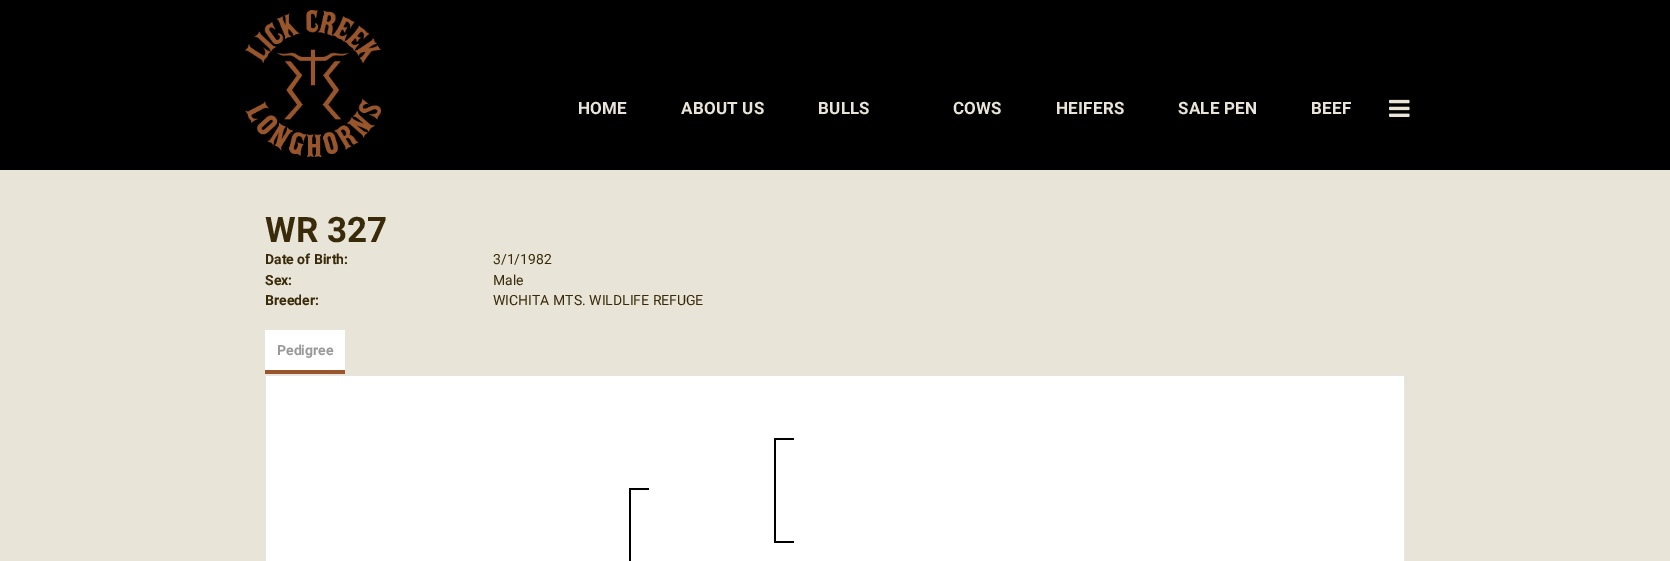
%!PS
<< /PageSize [1670 561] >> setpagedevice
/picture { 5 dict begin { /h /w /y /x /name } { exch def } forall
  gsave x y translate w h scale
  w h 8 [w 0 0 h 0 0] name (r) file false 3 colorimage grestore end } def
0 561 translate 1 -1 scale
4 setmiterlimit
0.91 0.894 0.843 setrgbcolor
0 0 1670 561 rectfill
0 setgray
0 0 1670 170 rectfill
(img1.rgb) 245 10 136 147 picture
/Roboto-Bold [17 0 0 -17 0 0] selectfont
0.91 0.894 0.843 setrgbcolor
578 114 moveto 0.25 0 (HOME) ashow
681 114 moveto 0.25 0 (ABOUT US) ashow
818 114 moveto 0.25 0 (BULLS) ashow
953 114 moveto 0.25 0 (COWS) ashow
1056 114 moveto 0.25 0 (HEIFERS) ashow
1178 114 moveto 0.25 0 (SALE PEN) ashow
1311 114 moveto 0.25 0 (BEEF) ashow
(img2.rgb) 1389 99 21 18 picture
/Roboto-Bold [35 0 0 -35 0 0] selectfont
0.224 0.169 0.035 setrgbcolor
265 242 moveto (WR 327) show
/Roboto-Bold [14 0 0 -14 0 0] selectfont
265 264 moveto (Date of Birth:) show
/Roboto-Regular [14 0 0 -14 0 0] selectfont
493 264 moveto (3/1/1982) show
/Roboto-Bold [14 0 0 -14 0 0] selectfont
265 285 moveto (Sex:) show
/Roboto-Regular [14 0 0 -14 0 0] selectfont
493 285 moveto (Male) show
/Roboto-Bold [14 0 0 -14 0 0] selectfont
265 305 moveto (Breeder:) show
/Roboto-Regular [14 0 0 -14 0 0] selectfont
493 305 moveto (WICHITA MTS. WILDLIFE REFUGE) show
0.898 setgray
265 375 1140 1 rectfill
0.6 0.337 0.173 setrgbcolor
265 370 80 4 rectfill
1 setgray
265 330 80 40 rectfill
/Roboto-Bold [14 0 0 -14 0 0] selectfont
0.608 0.6 0.6 setrgbcolor
277 355 moveto (Pedigree) show
1 setgray
266 376 1138 185 rectfill
0.898 setgray
newpath 1405 376 moveto 1404 376 lineto 1404 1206 lineto 1404 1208 lineto 1405 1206 lineto closepath fill
newpath 265 376 moveto 266 376 lineto 266 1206 lineto 266 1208 lineto 265 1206 lineto closepath fill
0 setgray
629 488 20 2 rectfill
629 488 2 73 rectfill
774 438 20 2 rectfill
774 541 20 2 rectfill
774 438 2 105 rectfill
showpage
